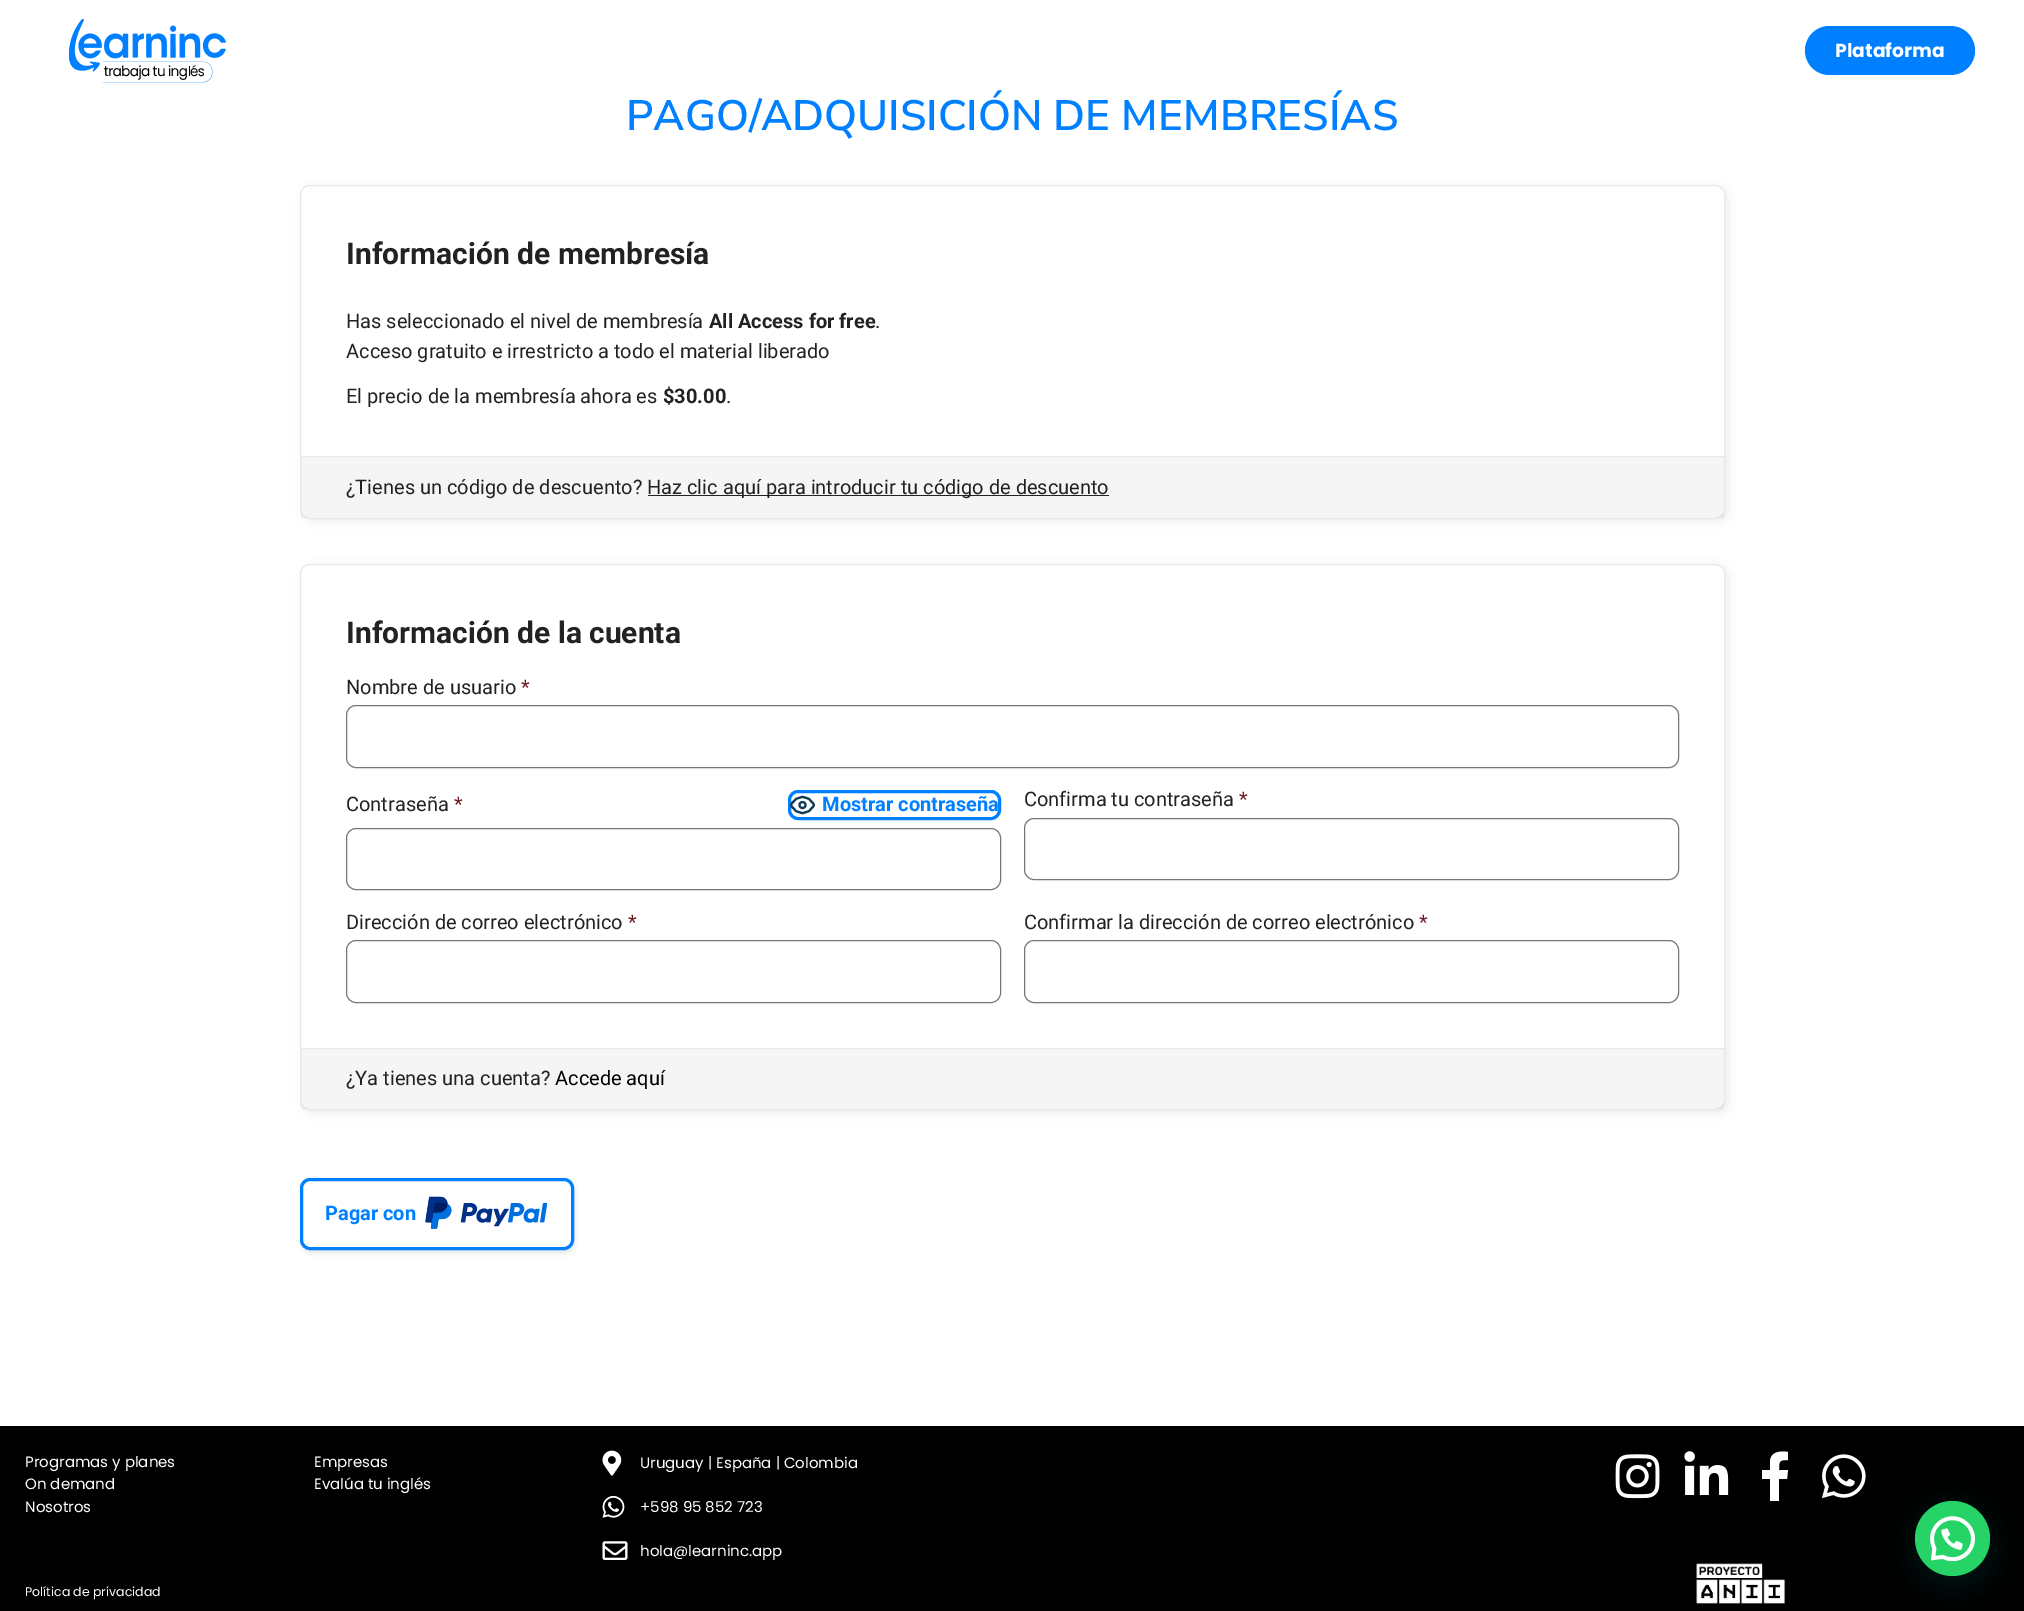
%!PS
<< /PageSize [2024 1611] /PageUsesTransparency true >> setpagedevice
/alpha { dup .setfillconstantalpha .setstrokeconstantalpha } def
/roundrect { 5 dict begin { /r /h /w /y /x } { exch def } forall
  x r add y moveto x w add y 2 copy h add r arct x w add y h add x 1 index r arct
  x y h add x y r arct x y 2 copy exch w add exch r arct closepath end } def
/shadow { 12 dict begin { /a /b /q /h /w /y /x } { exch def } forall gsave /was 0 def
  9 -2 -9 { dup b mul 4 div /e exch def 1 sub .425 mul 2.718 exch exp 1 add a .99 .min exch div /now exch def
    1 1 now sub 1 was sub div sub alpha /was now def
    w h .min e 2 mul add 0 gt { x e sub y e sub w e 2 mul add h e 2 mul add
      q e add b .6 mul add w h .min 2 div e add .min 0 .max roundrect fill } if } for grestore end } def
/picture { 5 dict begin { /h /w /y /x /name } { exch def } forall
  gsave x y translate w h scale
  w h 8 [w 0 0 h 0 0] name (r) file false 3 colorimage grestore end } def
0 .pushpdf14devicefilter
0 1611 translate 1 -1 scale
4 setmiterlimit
1 setgray
0 0 2024 1611 rectfill
(img1.rgb) 69 19 157 64 picture
0 0.502 1 setrgbcolor
1805 26 170 49 24.5 roundrect fill
/Poppins-Bold [18.75 0 0 -18.75 0 0] selectfont
1 setgray
1835 57 moveto (Plataforma) show
/NunitoSans-SemiBold [42.5 0 0 -42.5 0 0] selectfont
0 0.502 1 setrgbcolor
626 130 moveto (PAGO/ADQUISICIÓN DE MEMBRESÍAS) show
0 setgray
303 188 1425 333 10 4.5 0.07 shadow
1 setgray
300.5 185.5 1424 333 9.5 roundrect gsave fill grestore
0.91 setgray
stroke
/Roboto-Bold [30 0 0 -30 0 0] selectfont
0.133 setgray
346 264 moveto (Información de membresía) show
/Roboto-Regular [20 0 0 -20 0 0] selectfont
346 328 moveto (Has seleccionado el nivel de membresía) show
/Roboto-Bold [20 0 0 -20 0 0] selectfont
709 328 moveto (All Access for free) show
/Roboto-Regular [20 0 0 -20 0 0] selectfont
875 328 moveto (.) show
346 358 moveto (Acceso gratuito e irrestricto a todo el material liberado) show
346 403 moveto (El precio de la membresía ahora es) show
/Roboto-Bold [20 0 0 -20 0 0] selectfont
663 403 moveto ($30.00) show
/Roboto-Regular [20 0 0 -20 0 0] selectfont
726 403 moveto (.) show
0.04 alpha
0 setgray
301 457 1423 61 rectfill
1 alpha
0.91 setgray
301 456 1423 1 rectfill
0.133 setgray
346 494 moveto (¿Tienes un código de descuento?) show
648 495 461 1 rectfill
647 494 moveto (Haz clic aquí para introducir tu código de descuento) show
0 setgray
303 566 1425 547 10 4.5 0.07 shadow
1 setgray
300.5 564.5 1424 545 9.5 roundrect gsave fill grestore
0.91 setgray
stroke
/Roboto-Bold [30 0 0 -30 0 0] selectfont
0.133 setgray
346 643 moveto (Información de la cuenta) show
/Roboto-Regular [20 0 0 -20 0 0] selectfont
346 694 moveto (Nombre de usuario) show
0.447 0.11 0.141 setrgbcolor
521 694 moveto (*) show
0.467 setgray
346.5 705.5 1332 62 9.5 roundrect stroke
0.133 setgray
346 811 moveto (Contraseña) show
0.447 0.11 0.141 setrgbcolor
454 811 moveto (*) show
0 0.502 1 setrgbcolor
3 setlinewidth
789.5 791.5 210 27 8.5 roundrect stroke
0.047 0.239 0.329 setrgbcolor
2.1 setlinewidth
1 setlinecap
1 setlinejoin
newpath 791 805 moveto 796.5 794 808.5 794 814 805 curveto 808.5 816 796.5 816 791 805 curveto closepath stroke
0 setlinecap
0 setlinejoin
newpath 802.5 805 3 0 360 arc closepath stroke
/Roboto-Bold [20 0 0 -20 0 0] selectfont
0 0.502 1 setrgbcolor
822 811 moveto (Mostrar contraseña) show
0.467 setgray
1 setlinewidth
346.5 828.5 654 61 9.5 roundrect stroke
/Roboto-Regular [20 0 0 -20 0 0] selectfont
0.133 setgray
1024 806 moveto (Confirma tu contraseña) show
0.447 0.11 0.141 setrgbcolor
1239 806 moveto (*) show
0.467 setgray
1024.5 818.5 654 61 9.5 roundrect stroke
0.133 setgray
346 929 moveto (Dirección de correo electrónico) show
0.447 0.11 0.141 setrgbcolor
628 929 moveto (*) show
0.467 setgray
346.5 940.5 654 62 9.5 roundrect stroke
0.133 setgray
1024 929 moveto (Confirmar la dirección de correo electrónico) show
0.447 0.11 0.141 setrgbcolor
1419 929 moveto (*) show
0.467 setgray
1024.5 940.5 654 62 9.5 roundrect stroke
0.04 alpha
0 setgray
301 1049 1423 60 rectfill
1 alpha
0.91 setgray
301 1048 1423 1 rectfill
0.133 setgray
346 1085 moveto (¿Ya tienes una cuenta?) show
0 setgray
555 1085 moveto (Accede aquí) show
301 1180 274 73 10 2.5 0.1 shadow
1 setgray
301.5 1179.5 271 69 8.5 roundrect gsave fill grestore
0 0.502 1 setrgbcolor
3 setlinewidth
stroke
/Roboto-Bold [20 0 0 -20 0 0] selectfont
325 1220 moveto (Pagar con) show
(img2.rgb) 425 1196 123 33 picture
0 setgray
0 1426 2024 185 rectfill
/Poppins-Regular [15 0 0 -15 0 0] selectfont
1 setgray
25 1467 moveto (Programas y planes) show
25 1489 moveto (On demand) show
25 1512 moveto (Nosotros) show
/Poppins-Regular [12.5 0 0 -12.5 0 0] selectfont
25 1596 moveto (Política de privacidad) show
/Poppins-Regular [15 0 0 -15 0 0] selectfont
314 1467 moveto (Empresas) show
314 1489 moveto (Evalúa tu inglés) show
(img3.rgb) 602 1450 20 26 picture
640 1468 moveto (Uruguay | España | Colombia) show
(img4.rgb) 602 1495 23 23 picture
640 1512 moveto (+598 95 852 723) show
(img5.rgb) 602 1541 26 19 picture
640 1556 moveto (hola@learninc.app) show
(img6.rgb) 1615 1454 45 45 picture
(img7.rgb) 1684 1451 45 44 picture
newpath 1787 1479 moveto 1779 1479 lineto 1779 1501 lineto 1770 1501 lineto 1770 1479 lineto 1762 1479 lineto 1762 1470 lineto 1770 1470 lineto 1770 1461 lineto 1771 1451 1781 1451 1788 1452 curveto 1788 1460 lineto 1779 1460 1779 1461 1779 1470 curveto 1788 1470 lineto closepath fill
(img8.rgb) 1822 1454 44 44 picture
(img9.rgb) 1696 1563 90 41 picture
0.027 0.369 0.329 setrgbcolor
1916 1509 75 75 37.5 15 0.24 shadow
0.145 0.827 0.4 setrgbcolor
newpath 1952.5 1538.5 37.5 0 360 arc closepath fill
(img10.rgb) 1930 1516 45 45 picture
.poppdf14devicefilter showpage
